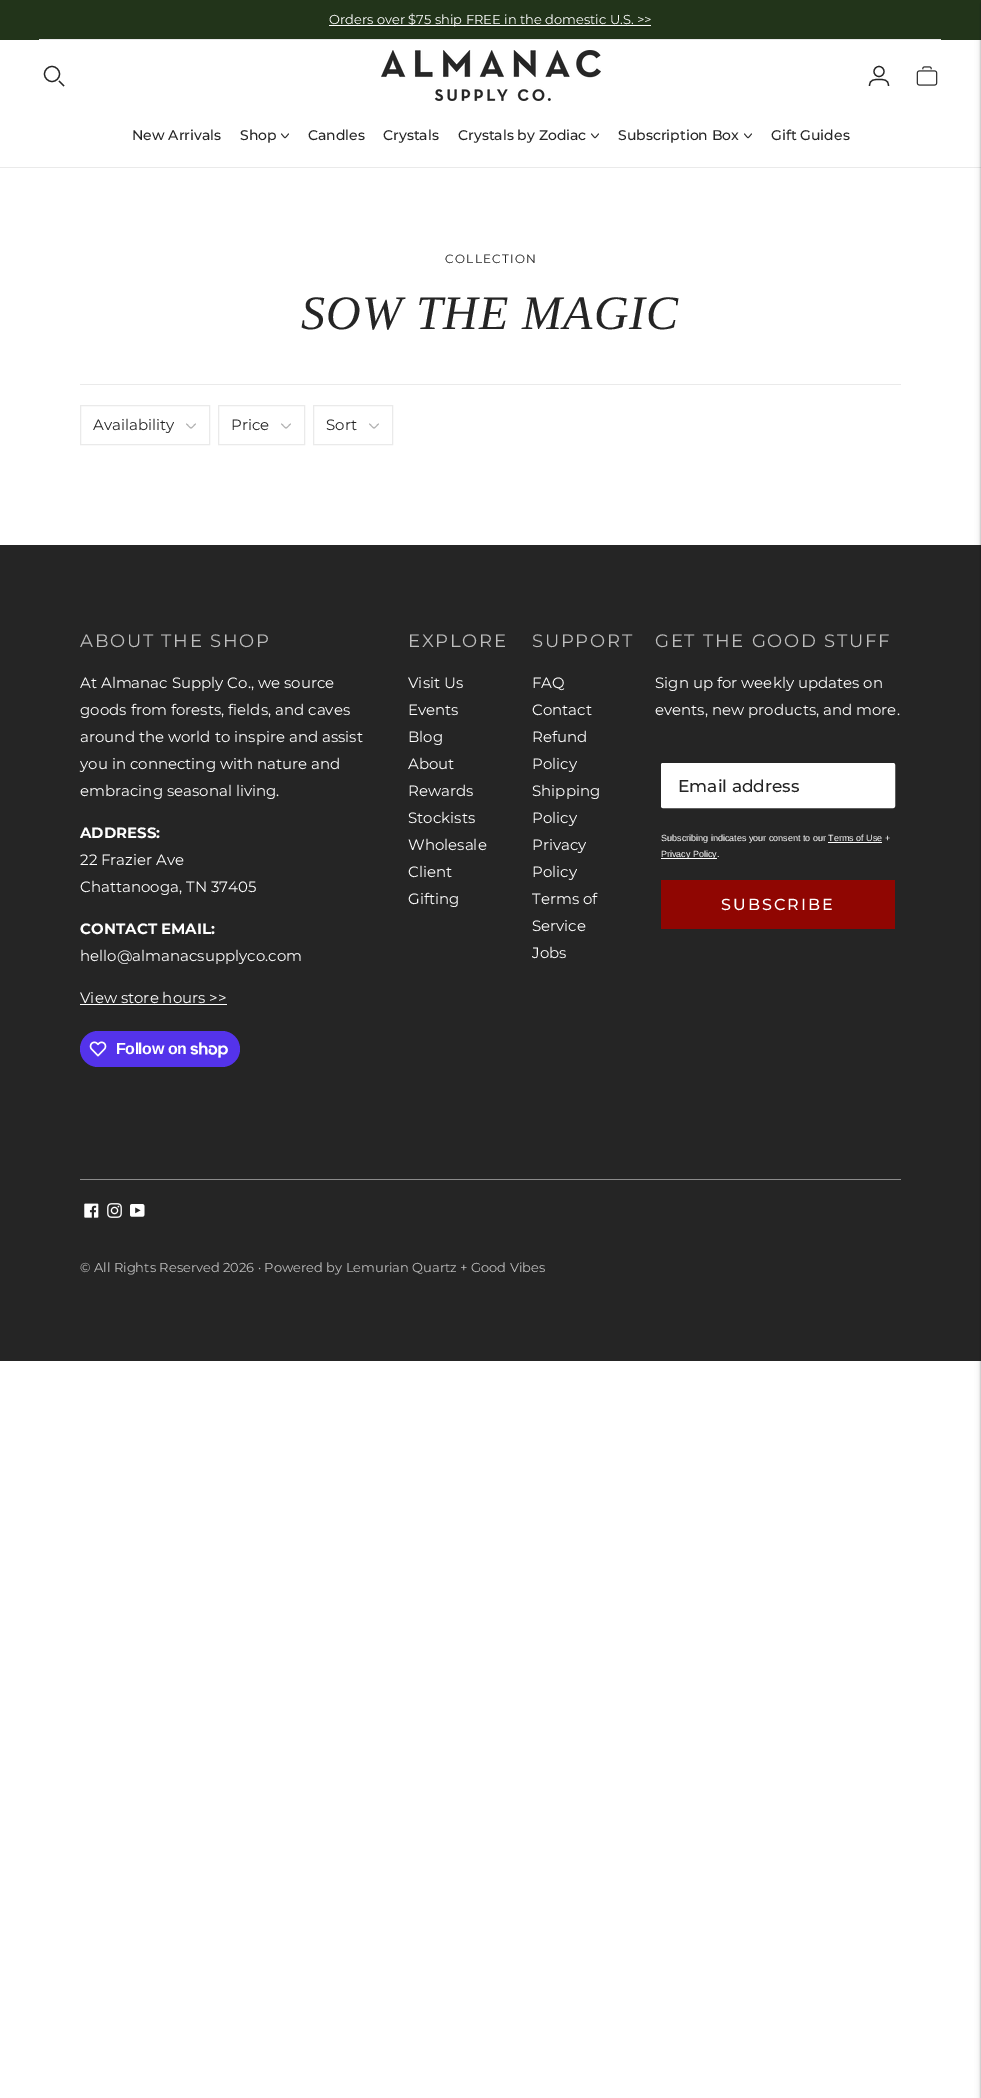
%!PS
<< /PageSize [981 2098] /PageUsesTransparency true >> setpagedevice
/alpha { dup .setfillconstantalpha .setstrokeconstantalpha } def
/roundrect { 5 dict begin { /r /h /w /y /x } { exch def } forall
  x r add y moveto x w add y 2 copy h add r arct x w add y h add x 1 index r arct
  x y h add x y r arct x y 2 copy exch w add exch r arct closepath end } def
/shadow { 12 dict begin { /a /b /q /h /w /y /x } { exch def } forall gsave /was 0 def
  9 -2 -9 { dup b mul 4 div /e exch def 1 sub .425 mul 2.718 exch exp 1 add a .99 .min exch div /now exch def
    1 1 now sub 1 was sub div sub alpha /was now def
    w h .min e 2 mul add 0 gt { x e sub y e sub w e 2 mul add h e 2 mul add
      q e add b .6 mul add w h .min 2 div e add .min 0 .max roundrect fill } if } for grestore end } def
/picture { 5 dict begin { /h /w /y /x /name } { exch def } forall
  gsave x y translate w h scale
  w h 8 [w 0 0 h 0 0] name (r) file false 3 colorimage grestore end } def
0 .pushpdf14devicefilter
0 2098 translate 1 -1 scale
4 setmiterlimit
1 setgray
0 0 981 2098 rectfill
0.133 0.204 0.102 setrgbcolor
0 0 981 40 rectfill
0.918 setgray
0 167 981 1 rectfill
0.145 setgray
0 545 981 816 rectfill
0 setgray
981 4 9 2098 0 3 0.1 shadow
981 2 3 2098 0 1 0.15 shadow
1 setgray
329 25 322 1 rectfill
/Montserrat-Regular [13 0 0 -13 0 0] selectfont
329 24 moveto (Orders over $75 ship FREE in the domestic U.S. >>) show
0.125 0.176 0.102 setrgbcolor
329 27 322 1 rectfill
0.918 setgray
39 39 902 1 rectfill
0.145 setgray
1.2 setlinewidth
newpath 52 74 7.5 0 360 arc closepath stroke
newpath 59 81 moveto 64 86 lineto stroke
(img1.rgb) 381 50 220 51 picture
newpath 879 71.5 5 0 360 arc closepath stroke
newpath 869.5 86 moveto 869.5 79.5 874 79.5 879 79.5 curveto 884 79.5 888.5 79.5 888.5 86 curveto stroke
(img2.rgb) 916 66 22 20 picture
/Montserrat-Medium [14 0 0 -14 0 0] selectfont
132 140 moveto (New Arrivals) show
240 140 moveto (Shop) show
0.8 setlinewidth
1 setlinecap
1 setlinejoin
newpath 281.5 134 moveto 286 139 284 139 288.5 134 curveto stroke
308 140 moveto (Candles) show
383 140 moveto (Crystals) show
458 140 moveto (Crystals by Zodiac) show
newpath 591.5 134 moveto 596 139 594 139 598.5 134 curveto stroke
618 140 moveto (Subscription Box) show
newpath 744.5 134 moveto 749 139 747 139 751.5 134 curveto stroke
771 140 moveto (Gift Guides) show
0 setgray
981 4 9 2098 0 3 0.1 shadow
981 2 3 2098 0 1 0.15 shadow
0.918 setgray
80 384 821 1 rectfill
/Montserrat-Regular [12 0 0 -12 0 0] selectfont
0.145 setgray
445 263 moveto 1.25 0 (COLLECTION) ashow
/LiberationSerif-Italic [48 0 0 -48 0 0] selectfont
301 329 moveto 1 0 (SOW THE MAGIC) ashow
0.918 setgray
1 setlinewidth
0 setlinecap
0 setlinejoin
80.5 405.5 129 39 rectstroke
/Montserrat-Regular [15 0 0 -15 0 0] selectfont
0.145 setgray
93 430 moveto (Availability) show
0.694 setgray
1 setlinecap
1 setlinejoin
newpath 186.5 424 moveto 192.5 429.5 189.5 429.5 195.5 424 curveto stroke
0.918 setgray
0 setlinecap
0 setlinejoin
218.5 405.5 86 39 rectstroke
0.145 setgray
231 430 moveto (Price) show
0.694 setgray
1 setlinecap
1 setlinejoin
newpath 281.5 424 moveto 287.5 429.5 284.5 429.5 290.5 424 curveto stroke
0.918 setgray
0 setlinecap
0 setlinejoin
313.5 405.5 79 39 rectstroke
0.145 setgray
326 430 moveto (Sort) show
0.694 setgray
1 setlinecap
1 setlinejoin
newpath 369.5 424 moveto 375.5 429.5 372.5 429.5 378.5 424 curveto stroke
/Montserrat-Regular [18 0 0 -18 0 0] selectfont
0.745 setgray
80 647 moveto 1.75 0 (ABOUT THE SHOP) ashow
/Montserrat-Regular [15 0 0 -15 0 0] selectfont
1 setgray
80 688 moveto (At Almanac Supply Co., we source) show
80 715 moveto (goods from forests, fields, and caves) show
80 742 moveto (around the world to inspire and assist) show
80 769 moveto (you in connecting with nature and) show
80 796 moveto (embracing seasonal living.) show
/Montserrat-Bold [15 0 0 -15 0 0] selectfont
80 838 moveto (ADDRESS:) show
/Montserrat-Regular [15 0 0 -15 0 0] selectfont
80 865 moveto (22 Frazier Ave) show
80 892 moveto (Chattanooga, TN 37405) show
/Montserrat-Bold [15 0 0 -15 0 0] selectfont
80 934 moveto (CONTACT EMAIL:) show
/Montserrat-Regular [15 0 0 -15 0 0] selectfont
80 961 moveto (hello@almanacsupplyco.com) show
80 1003 moveto (View store hours >>) show
80 1004 147 1 rectfill
0.329 0.2 0.922 setrgbcolor
80 1031 160 36 18 roundrect fill
(img3.rgb) 89 1041 18 16 picture
/LiberationSans-Bold [16 0 0 -16 0 0] selectfont
1 setgray
116 1054 moveto -0.5 0 (Follow on) ashow
(img4.rgb) 190 1042 38 16 picture
/Montserrat-Regular [18 0 0 -18 0 0] selectfont
0.745 setgray
408 647 moveto 1.75 0 (EXPLORE) ashow
/Montserrat-Regular [15 0 0 -15 0 0] selectfont
1 setgray
408 688 moveto (Visit Us) show
408 715 moveto (Events) show
408 742 moveto (Blog) show
408 769 moveto (About) show
408 796 moveto (Rewards) show
408 823 moveto (Stockists) show
408 850 moveto (Wholesale) show
408 877 moveto (Client) show
408 904 moveto (Gifting) show
/Montserrat-Regular [18 0 0 -18 0 0] selectfont
0.745 setgray
532 647 moveto 1.75 0 (SUPPORT) ashow
/Montserrat-Regular [15 0 0 -15 0 0] selectfont
1 setgray
532 688 moveto (FAQ) show
532 715 moveto (Contact) show
532 742 moveto (Refund) show
532 769 moveto (Policy) show
532 796 moveto (Shipping) show
532 823 moveto (Policy) show
532 850 moveto (Privacy) show
532 877 moveto (Policy) show
532 904 moveto (Terms of) show
532 931 moveto (Service) show
532 958 moveto (Jobs) show
/Montserrat-Regular [18 0 0 -18 0 0] selectfont
0.745 setgray
655 647 moveto 1.75 0 (GET THE GOOD STUFF) ashow
/Montserrat-Regular [15 0 0 -15 0 0] selectfont
1 setgray
655 688 moveto (Sign up for weekly updates on) show
655 715 moveto (events, new products, and more.) show
661.5 763.5 233 44 1.5 roundrect gsave fill grestore
0 setlinecap
0 setlinejoin
stroke
/Montserrat-Medium [17 0 0 -17 0 0] selectfont
0.145 setgray
678 792 moveto (Email address) show
/LiberationSans-Regular [9 0 0 -9 0 0] selectfont
1 setgray
661 841 moveto (Subscribing indicates your consent to our Terms of Use +) show
828 842 54 1 rectfill
661 858 56 1 rectfill
661 857 moveto (Privacy Policy.) show
0.565 0.024 0.008 setrgbcolor
661 880 234 49 rectfill
/Montserrat-Medium [16 0 0 -16 0 0] selectfont
1 setgray
721 910 moveto 2 0 (SUBSCRIBE) ashow
0.545 setgray
80 1179 821 1 rectfill
(img5.rgb) 84 1203 15 15 picture
(img6.rgb) 107 1203 15 15 picture
(img7.rgb) 130 1204 15 13 picture
/Montserrat-Regular [13 0 0 -13 0 0] selectfont
0.745 setgray
80 1272 moveto (© All Rights Reserved 2026 · Powered by Lemurian Quartz + Good Vibes) show
.poppdf14devicefilter showpage
